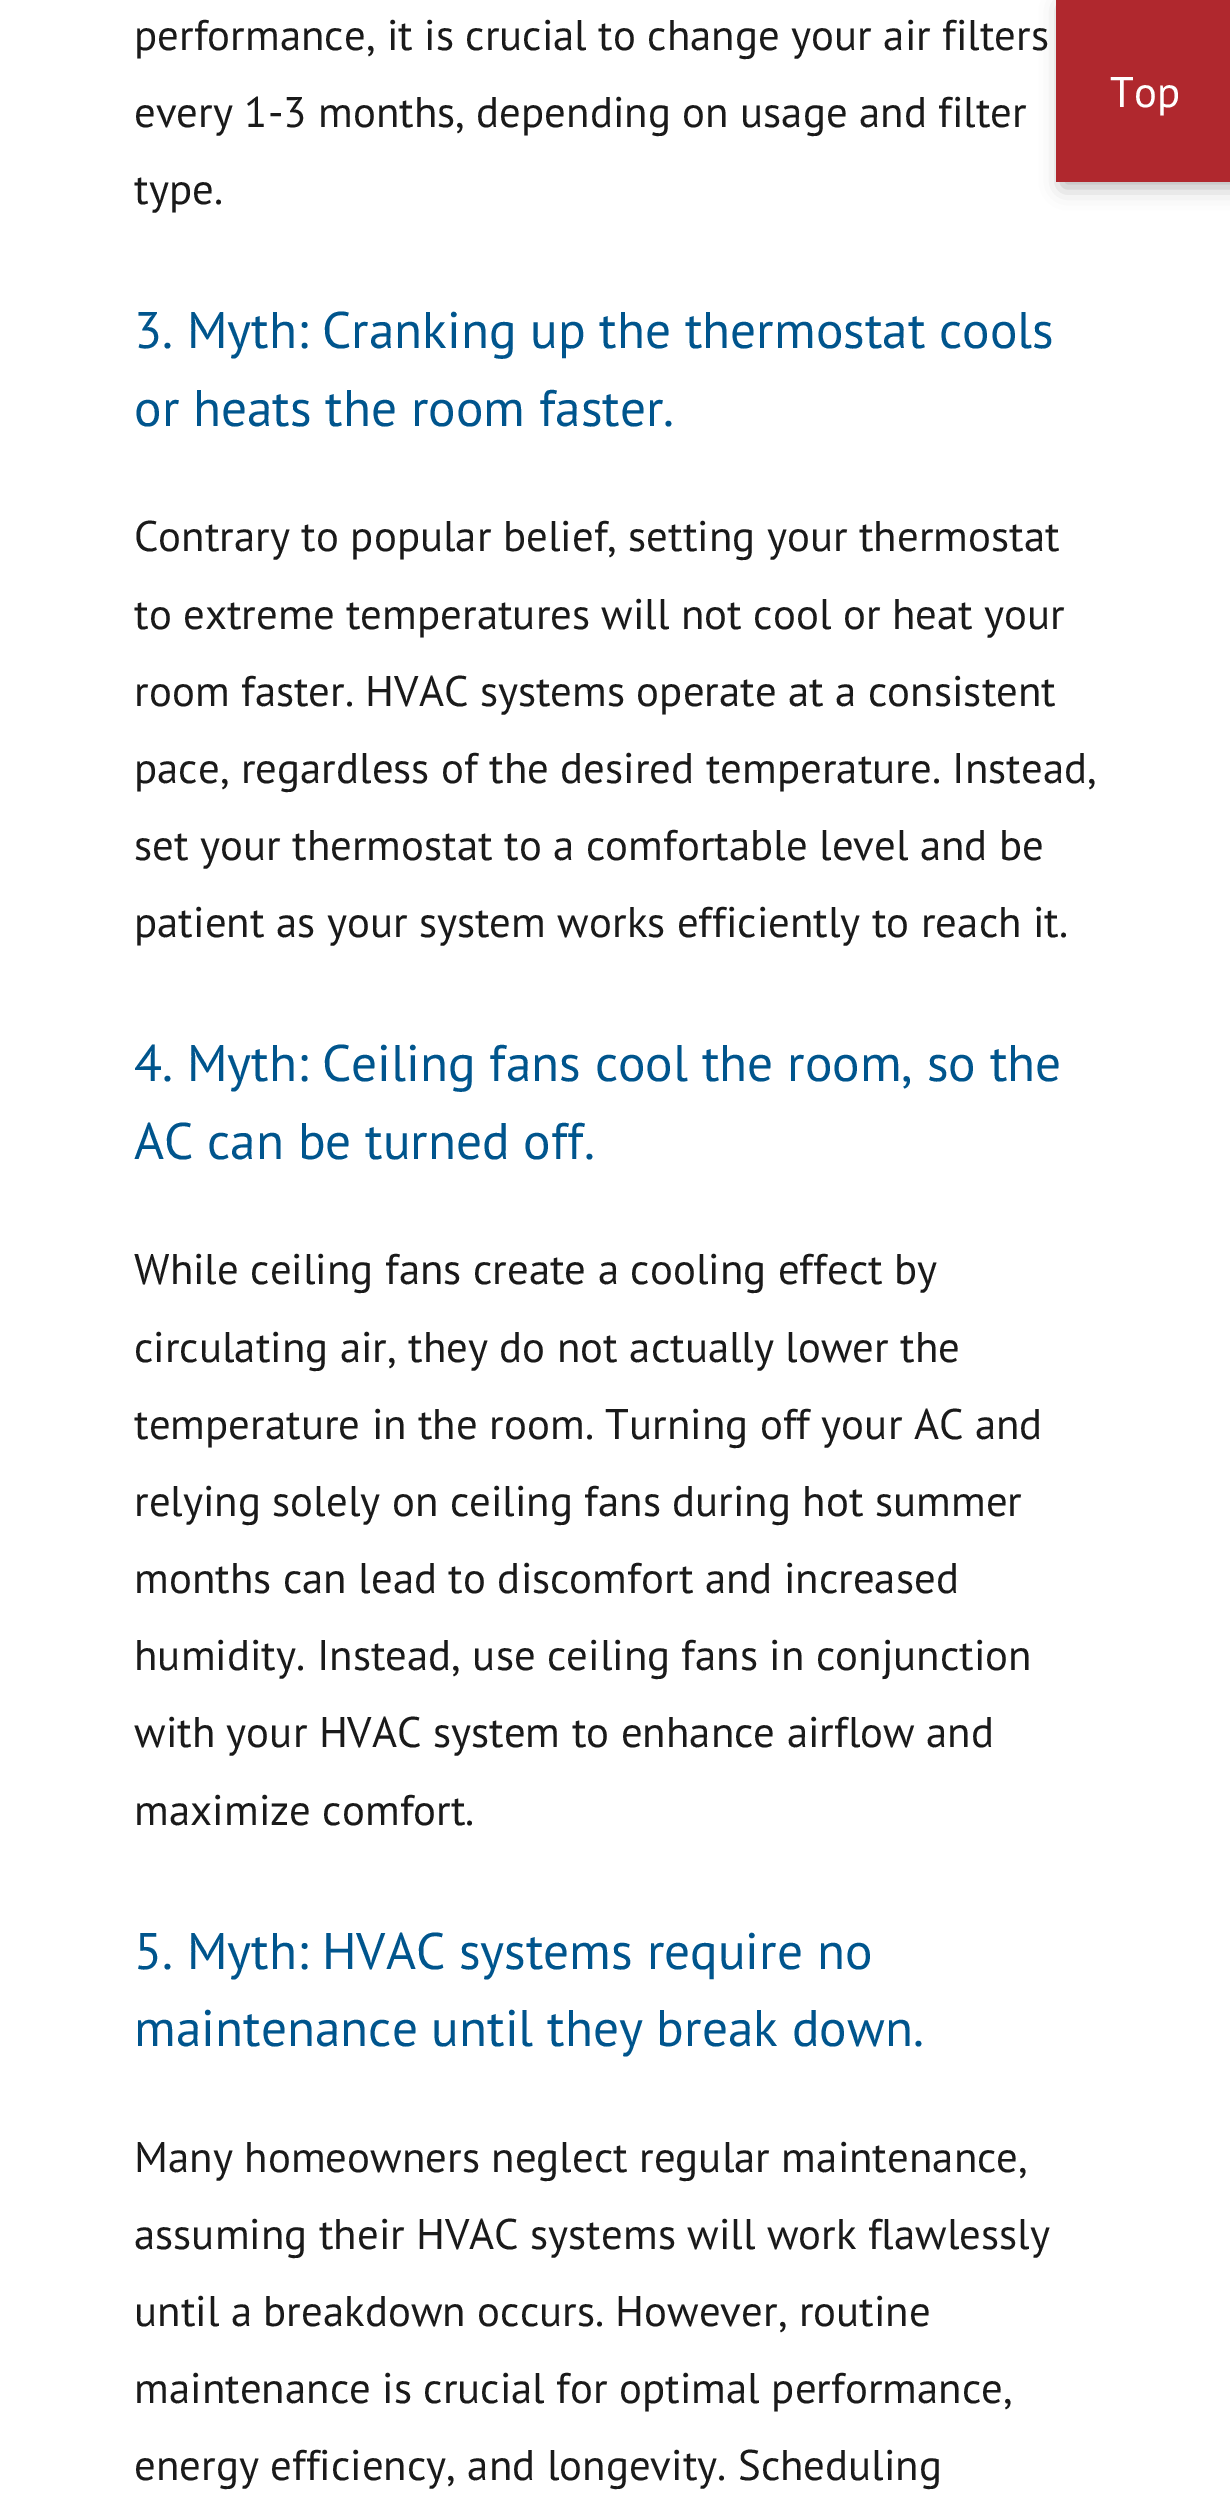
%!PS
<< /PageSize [1230 2511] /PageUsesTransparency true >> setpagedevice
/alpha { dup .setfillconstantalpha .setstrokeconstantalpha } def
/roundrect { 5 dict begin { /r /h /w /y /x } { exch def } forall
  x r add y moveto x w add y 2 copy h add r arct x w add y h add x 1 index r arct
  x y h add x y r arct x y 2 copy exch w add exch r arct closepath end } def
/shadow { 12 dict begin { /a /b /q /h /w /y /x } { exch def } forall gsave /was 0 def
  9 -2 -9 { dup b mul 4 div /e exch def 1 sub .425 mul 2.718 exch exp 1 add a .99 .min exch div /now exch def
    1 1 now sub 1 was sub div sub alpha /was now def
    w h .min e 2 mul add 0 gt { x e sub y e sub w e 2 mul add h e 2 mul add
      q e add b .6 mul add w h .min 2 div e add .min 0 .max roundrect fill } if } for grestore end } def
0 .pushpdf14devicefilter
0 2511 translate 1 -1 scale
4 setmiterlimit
1 setgray
0 0 1230 2511 rectfill
/PTSans-Regular [42.9 0 0 -42.9 0 0] selectfont
0.102 setgray
134 50 moveto (performance, it is crucial to change your air filters) show
134 127 moveto (every 1-3 months, depending on usage and filter) show
134 204 moveto (type.) show
/PTSans-Regular [51.4 0 0 -51.4 0 0] selectfont
0 0.333 0.553 setrgbcolor
134 348 moveto (3. Myth: Cranking up the thermostat cools) show
134 426 moveto (or heats the room faster.) show
/PTSans-Regular [42.9 0 0 -42.9 0 0] selectfont
0.102 setgray
134 551 moveto (Contrary to popular belief, setting your thermostat) show
134 629 moveto (to extreme temperatures will not cool or heat your) show
134 706 moveto (room faster. HVAC systems operate at a consistent) show
134 783 moveto (pace, regardless of the desired temperature. Instead,) show
134 860 moveto (set your thermostat to a comfortable level and be) show
134 937 moveto (patient as your system works efficiently to reach it.) show
/PTSans-Regular [51.4 0 0 -51.4 0 0] selectfont
0 0.333 0.553 setrgbcolor
134 1081 moveto (4. Myth: Ceiling fans cool the room, so the) show
134 1159 moveto (AC can be turned off.) show
/PTSans-Regular [42.9 0 0 -42.9 0 0] selectfont
0.102 setgray
134 1284 moveto (While ceiling fans create a cooling effect by) show
134 1362 moveto (circulating air, they do not actually lower the) show
134 1439 moveto (temperature in the room. Turning off your AC and) show
134 1516 moveto (relying solely on ceiling fans during hot summer) show
134 1593 moveto (months can lead to discomfort and increased) show
134 1670 moveto (humidity. Instead, use ceiling fans in conjunction) show
134 1747 moveto (with your HVAC system to enhance airflow and) show
134 1825 moveto (maximize comfort.) show
/PTSans-Regular [51.4 0 0 -51.4 0 0] selectfont
0 0.333 0.553 setrgbcolor
134 1969 moveto (5. Myth: HVAC systems require no) show
134 2046 moveto (maintenance until they break down.) show
/PTSans-Regular [42.9 0 0 -42.9 0 0] selectfont
0.102 setgray
134 2172 moveto (Many homeowners neglect regular maintenance,) show
134 2249 moveto (assuming their HVAC systems will work flawlessly) show
134 2326 moveto (until a breakdown occurs. However, routine) show
134 2403 moveto (maintenance is crucial for optimal performance,) show
134 2480 moveto (energy efficiency, and longevity. Scheduling) show
0 setgray
1062 6 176 181 0 10.5 0.3 shadow
0.69 0.157 0.18 setrgbcolor
1056 0 174 182 rectfill
1 setgray
1110 107 moveto (Top) show
.poppdf14devicefilter showpage
